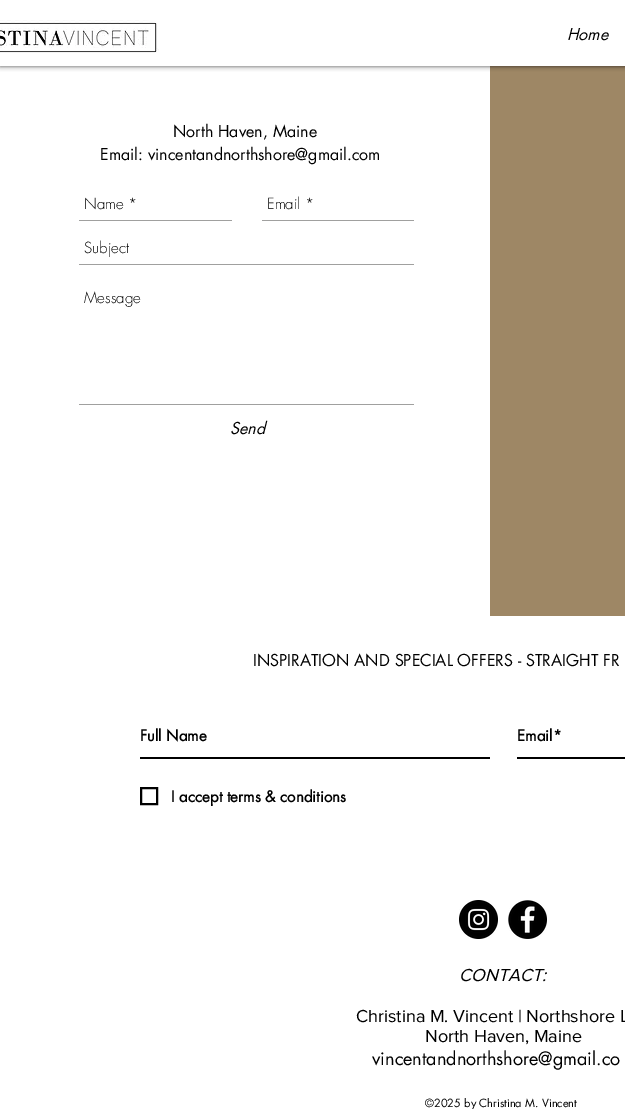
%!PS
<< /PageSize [625 1109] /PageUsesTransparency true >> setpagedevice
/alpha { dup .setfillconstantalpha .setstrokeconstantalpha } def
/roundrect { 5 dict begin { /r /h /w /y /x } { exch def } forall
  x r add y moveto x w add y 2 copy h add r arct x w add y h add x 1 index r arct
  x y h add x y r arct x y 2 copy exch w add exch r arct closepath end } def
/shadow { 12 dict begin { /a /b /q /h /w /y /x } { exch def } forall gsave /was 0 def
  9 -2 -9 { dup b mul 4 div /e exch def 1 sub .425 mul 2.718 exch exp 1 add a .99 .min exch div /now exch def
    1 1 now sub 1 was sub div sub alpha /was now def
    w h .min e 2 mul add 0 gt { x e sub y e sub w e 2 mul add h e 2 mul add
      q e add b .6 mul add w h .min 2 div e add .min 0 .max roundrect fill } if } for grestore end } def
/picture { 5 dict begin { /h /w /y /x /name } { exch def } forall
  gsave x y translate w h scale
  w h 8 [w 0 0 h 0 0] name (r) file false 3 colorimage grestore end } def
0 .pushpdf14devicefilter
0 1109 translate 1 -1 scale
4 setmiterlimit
1 setgray
0 0 625 1109 rectfill
0.62 0.529 0.396 setrgbcolor
490 66 135 550 rectfill
0 setgray
0 0 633 66 0 2.5 0.7 shadow
1 setgray
0 0 625 66 rectfill
(img1.rgb) 0 20 159 33 picture
/futura-Italic [16 0 0 -16 0 0] selectfont
0 setgray
567 40 moveto (Home) show
/futura-Regular [16 0 0 -16 0 0] selectfont
173 137 moveto (North Haven, Maine) show
100 160 moveto (Email: vincentandnorthshore@gmail.com) show
0.627 0.627 0.624 setrgbcolor
79 220 153 1 rectfill
/futura-Light [15 0 0 -15 0 0] selectfont
0 setgray
84 209 moveto (Name *) show
0.627 0.627 0.624 setrgbcolor
262 220 152 1 rectfill
0 setgray
267 209 moveto (Email *) show
0.627 0.627 0.624 setrgbcolor
79 264 335 1 rectfill
0 setgray
84 253 moveto (Subject) show
0.627 0.627 0.624 setrgbcolor
79 404 335 1 rectfill
0 setgray
84 303 moveto (Message) show
/futura-Italic [16 0 0 -16 0 0] selectfont
230 434 moveto (Send) show
/futura-Regular [16 0 0 -16 0 0] selectfont
253 666 moveto (INSPIRATION AND SPECIAL OFFERS - STRAIGHT FR) show
140 757 350 2 rectfill
/futura-Bold [15 0 0 -15 0 0] selectfont
140 741 moveto (Full Name) show
517 757 108 2 rectfill
517 741 moveto (Email*) show
2 setlinewidth
141 788 16 16 rectstroke
171 802 moveto (I accept terms & conditions) show
(img2.rgb) 459 900 39 39 picture
(img3.rgb) 508 900 39 39 picture
/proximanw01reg-Italic [18 0 0 -18 0 0] selectfont
459 981 moveto (CONTACT:) show
/proximanw01reg-Regular [18 0 0 -18 0 0] selectfont
356 1022 moveto (Christina M. Vincent | Northshore L) show
425 1042 moveto (North Haven, Maine) show
/futura-Regular [18 0 0 -18 0 0] selectfont
372 1065 moveto (vincentandnorthshore@gmail.co) show
/futura-Regular [11 0 0 -11 0 0] selectfont
425 1107 moveto (©2025 by Christina M. Vincent) show
.poppdf14devicefilter showpage
